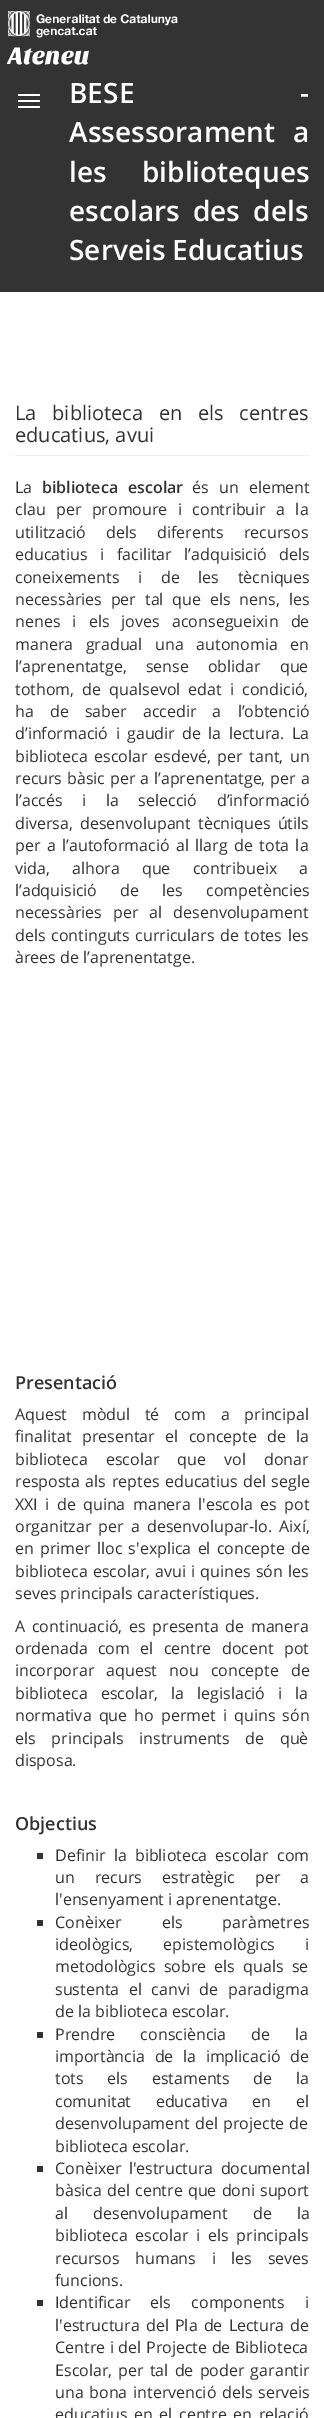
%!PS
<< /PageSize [324 2418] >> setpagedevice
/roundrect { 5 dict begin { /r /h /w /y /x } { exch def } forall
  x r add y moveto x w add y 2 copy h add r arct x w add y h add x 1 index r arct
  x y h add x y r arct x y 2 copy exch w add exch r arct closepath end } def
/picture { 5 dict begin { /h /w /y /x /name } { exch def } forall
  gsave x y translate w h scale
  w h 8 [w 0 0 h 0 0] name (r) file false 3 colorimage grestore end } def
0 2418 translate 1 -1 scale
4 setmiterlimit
1 setgray
0 0 324 2418 rectfill
0.2 setgray
0 0 324 292 rectfill
(img1.rgb) 8 11 170 27 picture
/SansitaOne-Regular [25 0 0 -25 0 0] selectfont
1 setgray
8 64 moveto (Ateneu) show
18 94 22 2 1 roundrect fill
18 100 22 2 1 roundrect fill
18 106 22 2 1 roundrect fill
/OpenSans-SemiBold [28 0 0 -28 0 0] selectfont
69 103 moveto 159 0 32 (BESE -) widthshow
69 142 moveto 10 0 32 (Assessorament a) widthshow
69 182 moveto 28 0 32 (les biblioteques) widthshow
69 221 moveto 6 0 32 (escolars des dels) widthshow
69 260 moveto (Serveis Educatius) show
0.933 setgray
15 455 294 1 rectfill
/OpenSans-Regular [20 0 0 -20 0 0] selectfont
0.2 setgray
15 420 moveto 10.5 0 32 (La biblioteca en els centres) widthshow
15 442 moveto (educatius, avui) show
/OpenSans-Regular [16 0 0 -16 0 0] selectfont
15 493 moveto (La) show
/OpenSans-SemiBold [16 0 0 -16 0 0] selectfont
42 493 moveto 6 0 32 (biblioteca escolar) widthshow
/OpenSans-Regular [16 0 0 -16 0 0] selectfont
192 493 moveto 6 0 32 (és un element) widthshow
15 515 moveto 6.25 0 32 (clau per promoure i contribuir a la) widthshow
15 538 moveto 16 0 32 (utilització dels diferents recursos) widthshow
15 560 moveto 8.5 0 32 (educatius i facilitar l’adquisició dels) widthshow
15 583 moveto 14.5 0 32 (coneixements i de les tècniques) widthshow
15 605 moveto 4.75 0 32 (necessàries per tal que els nens, les) widthshow
15 627 moveto 8 0 32 (nenes i els joves aconsegueixin de) widthshow
15 650 moveto 8.5 0 32 (manera gradual una autonomia en) widthshow
15 672 moveto 15 0 32 (l’aprenentatge, sense oblidar que) widthshow
15 695 moveto 4 0 32 (tothom, de qualsevol edat i condició,) widthshow
15 717 moveto 12 0 32 (ha de saber accedir a l’obtenció) widthshow
15 739 moveto 3.25 0 32 (d’informació i gaudir de la lectura. La) widthshow
15 762 moveto 2.5 0 32 (biblioteca escolar esdevé, per tant, un) widthshow
15 784 moveto 0.75 0 32 (recurs bàsic per a l’aprenentatge, per a) widthshow
15 806 moveto 15.5 0 32 (l’accés i la selecció d’informació) widthshow
15 829 moveto 3 0 32 (diversa, desenvolupant tècniques útils) widthshow
15 851 moveto 2.25 0 32 (per a l’autoformació al llarg de tota la) widthshow
15 874 moveto 18 0 32 (vida, alhora que contribueix a) widthshow
15 896 moveto 19 0 32 (l’adquisició de les competències) widthshow
15 918 moveto 7 0 32 (necessàries per al desenvolupament) widthshow
15 941 moveto 1.5 0 32 (dels continguts curriculars de totes les) widthshow
15 963 moveto (àrees de l’aprenentatge.) show
/OpenSans-SemiBold [18 0 0 -18 0 0] selectfont
15 1389 moveto (Presentació) show
/OpenSans-Regular [16 0 0 -16 0 0] selectfont
15 1420 moveto 10.5 0 32 (Aquest mòdul té com a principal) widthshow
15 1442 moveto 6.25 0 32 (finalitat presentar el concepte de la) widthshow
15 1465 moveto 14 0 32 (biblioteca escolar que vol donar) widthshow
15 1487 moveto 1.5 0 32 (resposta als reptes educatius del segle) widthshow
15 1510 moveto 3.25 0 32 (XXI i de quina manera l'escola es pot) widthshow
15 1532 moveto 3 0 32 (organitzar per a desenvolupar-lo. Així,) widthshow
15 1554 moveto 2 0 32 (en primer lloc s'explica el concepte de) widthshow
15 1577 moveto 1 0 32 (biblioteca escolar, avui i quines són les) widthshow
15 1599 moveto (seves principals característiques.) show
15 1632 moveto 2.5 0 32 (A continuació, es presenta de manera) widthshow
15 1654 moveto 6.25 0 32 (ordenada com el centre docent pot) widthshow
15 1676 moveto 8 0 32 (incorporar aquest nou concepte de) widthshow
15 1699 moveto 9 0 32 (biblioteca escolar, la legislació i la) widthshow
15 1721 moveto 3 0 32 (normativa que ho permet i quins són) widthshow
15 1744 moveto 11.5 0 32 (els principals instruments de què) widthshow
15 1766 moveto (disposa.) show
/OpenSans-SemiBold [18 0 0 -18 0 0] selectfont
15 1830 moveto (Objectius) show
37 1853 6 6 rectfill
/OpenSans-Regular [16 0 0 -16 0 0] selectfont
55 1861 moveto 4 0 32 (Definir la biblioteca escolar com) widthshow
55 1883 moveto 16 0 32 (un recurs estratègic per a) widthshow
55 1905 moveto (l'ensenyament i aprenentatge.) show
37 1920 6 6 rectfill
55 1928 moveto 36 0 32 (Conèixer els paràmetres) widthshow
55 1950 moveto 26 0 32 (ideològics, epistemològics i) widthshow
55 1972 moveto 4 0 32 (metodològics sobre els quals se) widthshow
55 1995 moveto 5.5 0 32 (sustenta el canvi de paradigma) widthshow
55 2017 moveto (de la biblioteca escolar.) show
37 2032 6 6 rectfill
55 2040 moveto 21 0 32 (Prendre consciència de la) widthshow
55 2062 moveto 5.5 0 32 (importància de la implicació de) widthshow
55 2084 moveto 19.5 0 32 (tots els estaments de la) widthshow
55 2107 moveto 20.5 0 32 (comunitat educativa en el) widthshow
55 2129 moveto 1 0 32 (desenvolupament del projecte de) widthshow
55 2152 moveto (biblioteca escolar.) show
37 2166 6 6 rectfill
55 2174 moveto 3 0 32 (Conèixer l'estructura documental) widthshow
55 2196 moveto 1 0 32 (bàsica del centre que doni suport) widthshow
55 2219 moveto 21 0 32 (al desenvolupament de la) widthshow
55 2241 moveto 3.5 0 32 (biblioteca escolar i els principals) widthshow
55 2264 moveto 11.5 0 32 (recursos humans i les seves) widthshow
55 2286 moveto (funcions.) show
37 2300 6 6 rectfill
55 2308 moveto 16 0 32 (Identificar els components i) widthshow
55 2331 moveto 2 0 32 (l'estructura del Pla de Lectura de) widthshow
55 2353 moveto 0.5 0 32 (Centre i del Projecte de Biblioteca) widthshow
55 2376 moveto 2 0 32 (Escolar, per tal de poder garantir) widthshow
55 2398 moveto 1.5 0 32 (una bona intervenció dels serveis) widthshow
55 2420 moveto 2.5 0 32 (educatius en el centre en relació) widthshow
showpage
